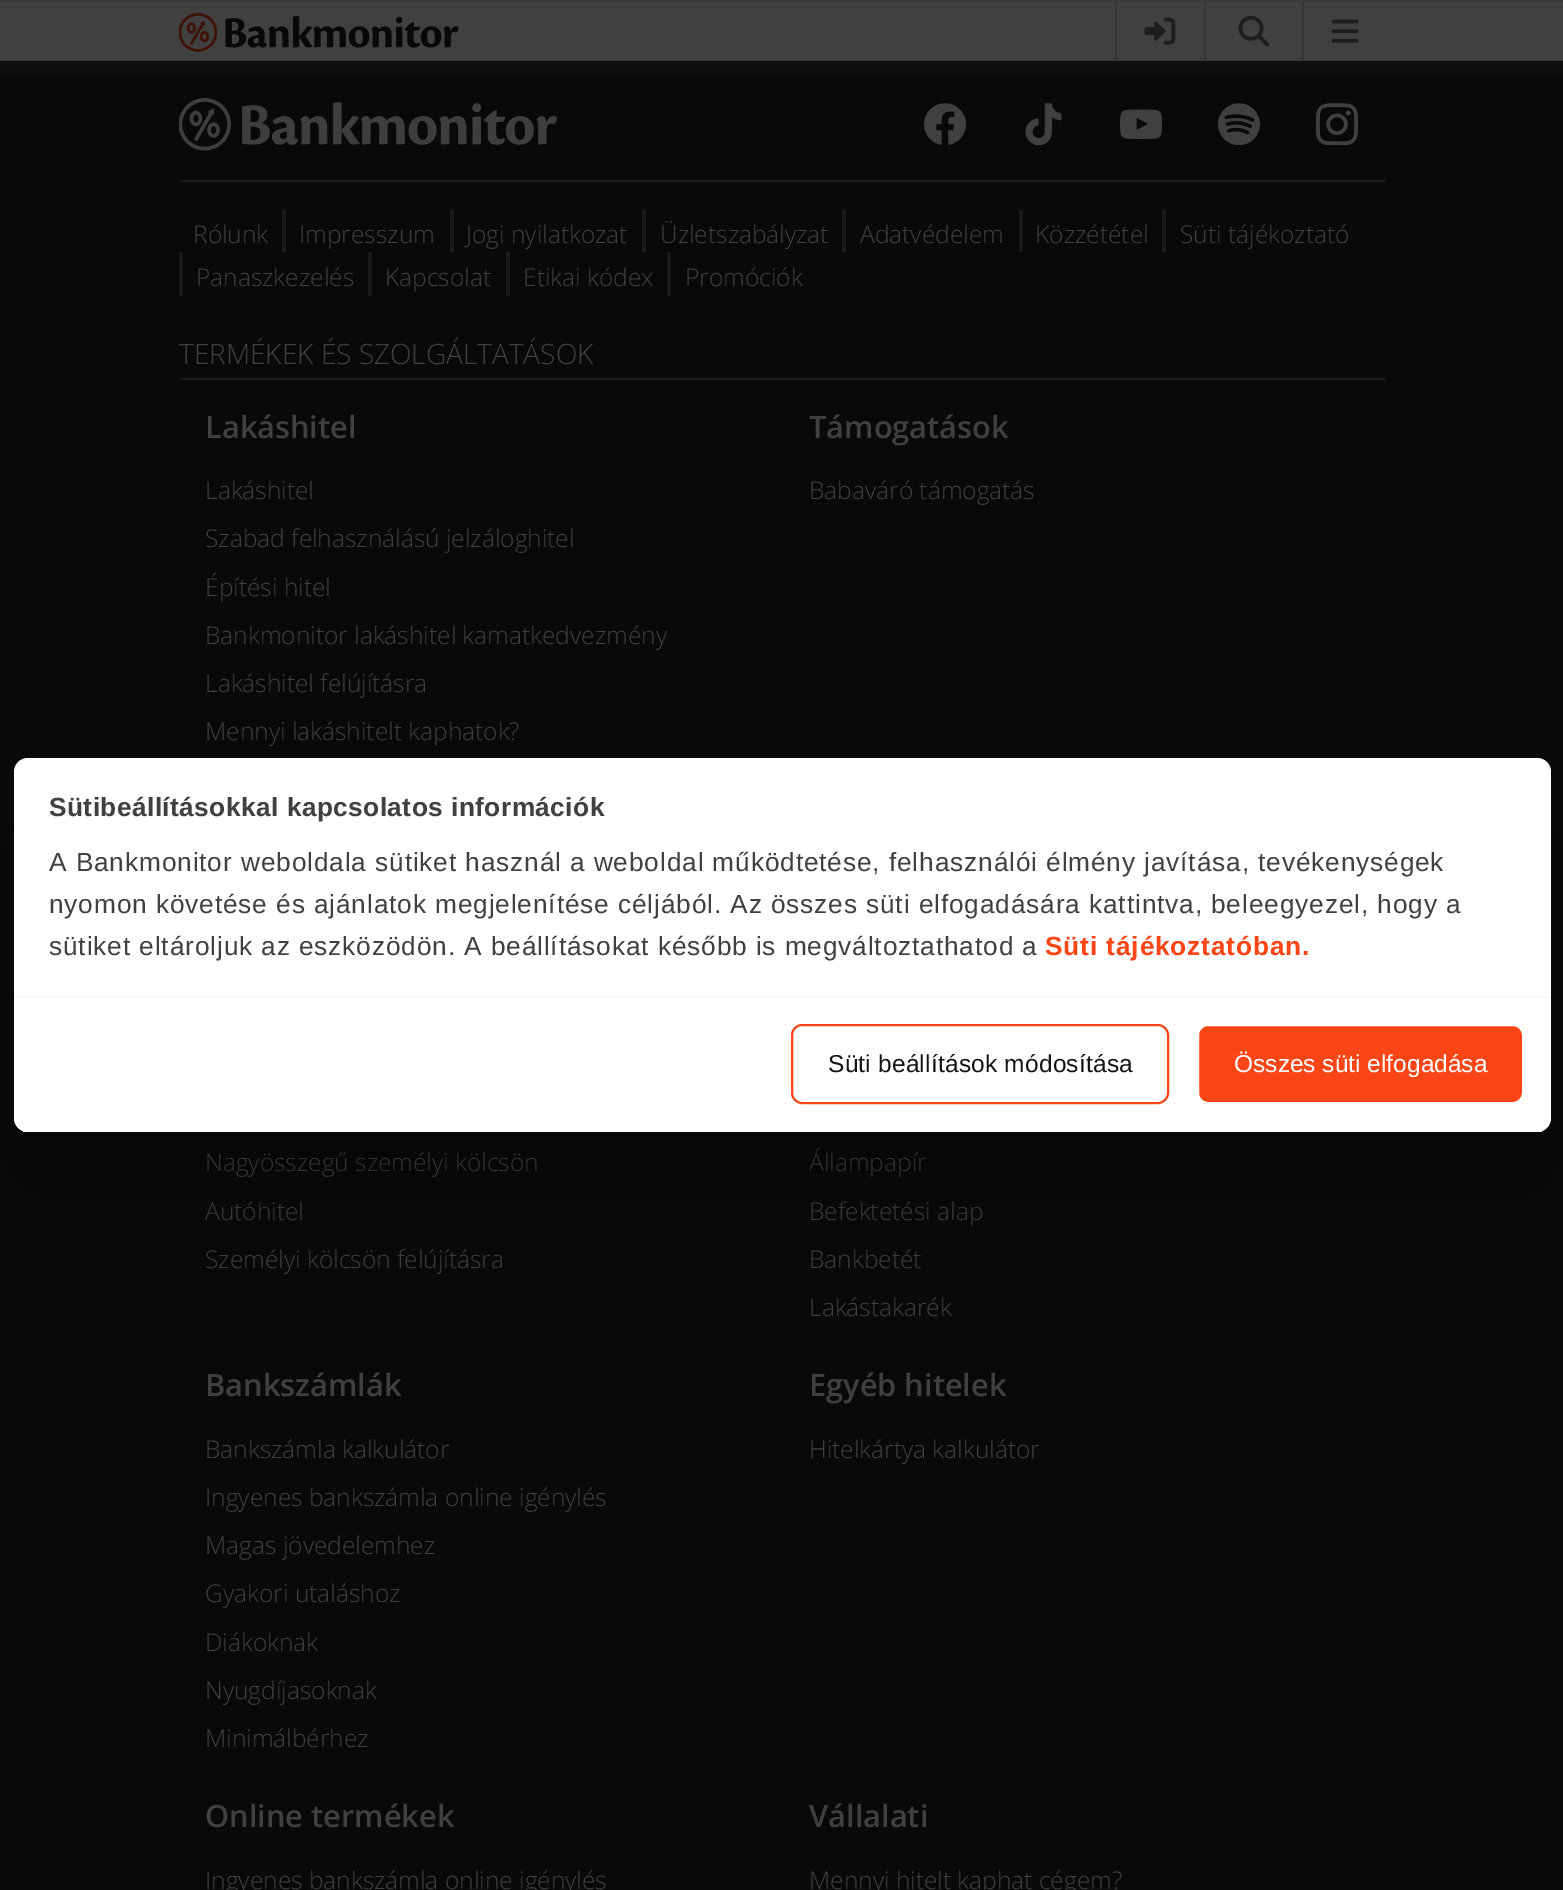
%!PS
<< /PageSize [1563 1890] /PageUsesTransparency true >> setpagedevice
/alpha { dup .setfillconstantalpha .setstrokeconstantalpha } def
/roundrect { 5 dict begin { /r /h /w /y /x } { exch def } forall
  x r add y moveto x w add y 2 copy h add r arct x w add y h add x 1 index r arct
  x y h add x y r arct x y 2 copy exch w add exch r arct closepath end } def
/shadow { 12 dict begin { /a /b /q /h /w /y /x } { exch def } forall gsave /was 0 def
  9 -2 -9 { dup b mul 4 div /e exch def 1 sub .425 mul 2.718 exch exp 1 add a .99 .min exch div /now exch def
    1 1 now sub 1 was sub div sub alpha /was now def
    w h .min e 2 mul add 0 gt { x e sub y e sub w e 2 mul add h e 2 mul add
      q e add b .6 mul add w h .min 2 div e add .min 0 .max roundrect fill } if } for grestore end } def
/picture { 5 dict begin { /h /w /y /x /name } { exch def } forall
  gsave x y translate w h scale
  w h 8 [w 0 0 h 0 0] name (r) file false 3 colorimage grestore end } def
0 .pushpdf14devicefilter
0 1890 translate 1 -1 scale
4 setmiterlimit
0.251 setgray
0 0 1563 1890 rectfill
0.22 0.224 0.227 setrgbcolor
0 0 1563 2 rectfill
0 60 1563 1 rectfill
(img1.rgb) 179 12 280 40 picture
0.204 0.208 0.216 setrgbcolor
1115 2 2 58 rectfill
(img2.rgb) 1144 17 32 28 picture
1204 2 2 58 rectfill
(img3.rgb) 1238 15 32 32 picture
1302 2 2 58 rectfill
(img4.rgb) 1331 19 28 24 picture
0.031 0.035 0.039 setrgbcolor
0 75 1563 1815 rectfill
0.051 0.059 0.063 setrgbcolor
0 61 1563 14 rectfill
0.098 0.102 0.102 setrgbcolor
179 180 1207 2 rectfill
(img5.rgb) 179 98 378 53 picture
(img6.rgb) 924 103 42 42 picture
(img7.rgb) 1025 103 37 42 picture
(img8.rgb) 1120 109 42 30 picture
(img9.rgb) 1218 103 42 42 picture
(img10.rgb) 1316 103 42 42 picture
/OpenSans-Light [24.5 0 0 -24.5 0 0] selectfont
0.251 setgray
193 243 moveto (Rólunk) show
0.098 0.102 0.102 setrgbcolor
282 210 4 42 rectfill
0.251 setgray
299 243 moveto (Impresszum) show
0.098 0.102 0.102 setrgbcolor
450 210 4 42 rectfill
0.251 setgray
466 243 moveto (Jogi nyilatkozat) show
0.098 0.102 0.102 setrgbcolor
642 210 4 42 rectfill
0.251 setgray
660 243 moveto (Üzletszabályzat) show
0.098 0.102 0.102 setrgbcolor
842 210 4 42 rectfill
0.251 setgray
860 243 moveto (Adatvédelem) show
0.098 0.102 0.102 setrgbcolor
1019 210 4 42 rectfill
0.251 setgray
1035 243 moveto (Közzététel) show
0.098 0.102 0.102 setrgbcolor
1162 210 4 42 rectfill
0.251 setgray
1180 243 moveto (Süti tájékoztató) show
0.098 0.102 0.102 setrgbcolor
179 252 4 44 rectfill
0.251 setgray
196 286 moveto (Panaszkezelés) show
0.098 0.102 0.102 setrgbcolor
368 252 4 44 rectfill
0.251 setgray
385 286 moveto (Kapcsolat) show
0.098 0.102 0.102 setrgbcolor
506 252 4 44 rectfill
0.251 setgray
523 286 moveto (Etikai kódex) show
0.098 0.102 0.102 setrgbcolor
667 252 4 44 rectfill
0.251 setgray
685 286 moveto (Promóciók) show
0.098 0.102 0.102 setrgbcolor
179 378 1207 2 rectfill
/OpenSans-Light [28 0 0 -28 0 0] selectfont
0.251 setgray
179 364 moveto (TERMÉKEK ÉS SZOLGÁLTATÁSOK) show
/OpenSans-SemiBold [30.75 0 0 -30.75 0 0] selectfont
205 438 moveto (Lakáshitel) show
/OpenSans-Light [24.5 0 0 -24.5 0 0] selectfont
205 499 moveto (Lakáshitel) show
205 547 moveto (Szabad felhasználású jelzáloghitel) show
205 596 moveto (Építési hitel) show
205 644 moveto (Bankmonitor lakáshitel kamatkedvezmény) show
205 692 moveto (Lakáshitel felújításra) show
205 740 moveto (Mennyi lakáshitelt kaphatok?) show
/OpenSans-SemiBold [30.75 0 0 -30.75 0 0] selectfont
809 438 moveto (Támogatások) show
/OpenSans-Light [24.5 0 0 -24.5 0 0] selectfont
809 499 moveto (Babaváró támogatás) show
205 1171 moveto (Nagyösszegű személyi kölcsön) show
205 1220 moveto (Autóhitel) show
205 1268 moveto (Személyi kölcsön felújításra) show
809 1171 moveto (Állampapír) show
809 1220 moveto (Befektetési alap) show
809 1268 moveto (Bankbetét) show
809 1316 moveto (Lakástakarék) show
/OpenSans-SemiBold [30.75 0 0 -30.75 0 0] selectfont
205 1396 moveto (Bankszámlák) show
/OpenSans-Light [24.5 0 0 -24.5 0 0] selectfont
205 1458 moveto (Bankszámla kalkulátor) show
205 1506 moveto (Ingyenes bankszámla online igénylés) show
205 1554 moveto (Magas jövedelemhez) show
205 1602 moveto (Gyakori utaláshoz) show
205 1651 moveto (Diákoknak) show
205 1699 moveto (Nyugdíjasoknak) show
205 1747 moveto (Minimálbérhez) show
/OpenSans-SemiBold [30.75 0 0 -30.75 0 0] selectfont
809 1396 moveto (Egyéb hitelek) show
/OpenSans-Light [24.5 0 0 -24.5 0 0] selectfont
809 1458 moveto (Hitelkártya kalkulátor) show
/OpenSans-SemiBold [30.75 0 0 -30.75 0 0] selectfont
205 1827 moveto (Online termékek) show
/OpenSans-Light [24.5 0 0 -24.5 0 0] selectfont
205 1889 moveto (Ingyenes bankszámla online igénylés) show
/OpenSans-SemiBold [30.75 0 0 -30.75 0 0] selectfont
809 1827 moveto (Vállalati) show
/OpenSans-Light [24.5 0 0 -24.5 0 0] selectfont
809 1889 moveto (Mennyi hitelt kaphat cégem?) show
0 setgray
14 814 1537 374 14 59.5 0.3 shadow
1 setgray
14 758 1537 374 14 roundrect fill
0.973 0.976 0.98 setrgbcolor
14 996 1537 2 rectfill
/LiberationSans-Bold [26.25 0 0 -26.25 0 0] selectfont
0.251 setgray
49 816 moveto 0.45 0 (Sütibeállításokkal kapcsolatos információk) ashow
/LiberationSans-Regular [26.25 0 0 -26.25 0 0] selectfont
49 871 moveto 0.88 0 (A Bankmonitor weboldala sütiket használ a weboldal működtetése, felhasználói élmény javítása, tevékenységek) ashow
49 913 moveto 0.88 0 (nyomon követése és ajánlatok megjelenítése céljából. Az összes süti elfogadására kattintva, beleegyezel, hogy a) ashow
49 955 moveto 0.88 0 (sütiket eltároljuk az eszközödön. A beállításokat később is megváltoztathatod a) ashow
/LiberationSans-Bold [26.25 0 0 -26.25 0 0] selectfont
0.98 0.275 0.086 setrgbcolor
1045 955 moveto 0.88 0 (Süti tájékoztatóban.) ashow
gsave
14 758 1537 374 14 roundrect clip newpath
0.973 0.976 0.98 setrgbcolor
23 1131 1519 1 rectfill
grestore
2 setlinewidth
792 1025 376 78 10 roundrect stroke
/LiberationSans-Regular [24.5 0 0 -24.5 0 0] selectfont
0.078 setgray
828 1072 moveto 0.2 0 (Süti beállítások módosítása) ashow
0.98 0.275 0.086 setrgbcolor
1198 1025 325 78 10 roundrect gsave fill grestore
1 setgray
stroke
1234 1072 moveto (Összes süti elfogadása) show
.poppdf14devicefilter showpage
